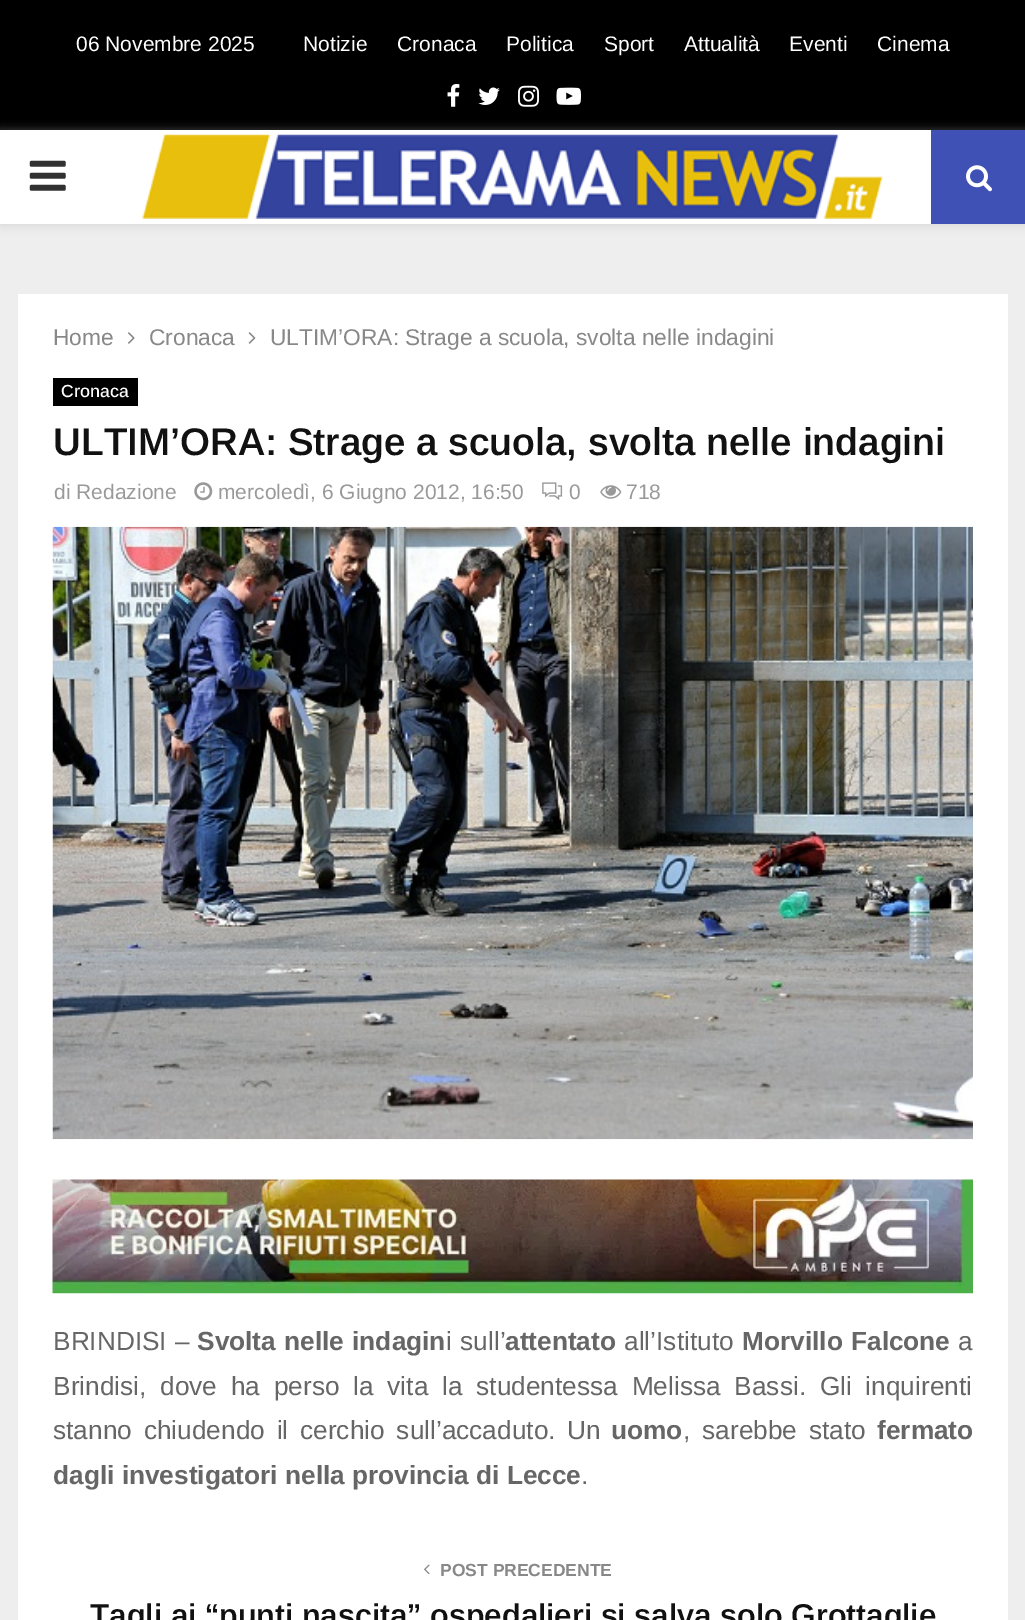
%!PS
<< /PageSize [1025 1620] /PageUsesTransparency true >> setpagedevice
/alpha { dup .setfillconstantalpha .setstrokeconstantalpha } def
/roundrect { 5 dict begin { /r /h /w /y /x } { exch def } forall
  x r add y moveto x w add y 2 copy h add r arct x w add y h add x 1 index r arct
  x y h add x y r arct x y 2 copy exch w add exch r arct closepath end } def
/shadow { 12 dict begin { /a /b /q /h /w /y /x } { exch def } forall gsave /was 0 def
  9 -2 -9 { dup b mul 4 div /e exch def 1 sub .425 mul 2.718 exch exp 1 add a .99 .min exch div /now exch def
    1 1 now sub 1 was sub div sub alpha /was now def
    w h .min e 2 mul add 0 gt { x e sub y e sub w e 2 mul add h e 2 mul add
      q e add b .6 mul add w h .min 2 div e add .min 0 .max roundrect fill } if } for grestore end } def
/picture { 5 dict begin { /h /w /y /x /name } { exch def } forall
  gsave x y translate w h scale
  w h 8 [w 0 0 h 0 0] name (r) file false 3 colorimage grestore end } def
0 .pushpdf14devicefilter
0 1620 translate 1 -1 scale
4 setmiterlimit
0.933 setgray
0 0 1025 1620 rectfill
0 setgray
0 0 1025 130 rectfill
/Arimo-Regular [21 0 0 -21 0 0] selectfont
1 setgray
76 51 moveto (06 Novembre 2025) show
303 51 moveto (Notizie) show
397 51 moveto (Cronaca) show
506 51 moveto (Politica) show
604 51 moveto (Sport) show
684 51 moveto (Attualità) show
789 51 moveto (Eventi) show
877 51 moveto (Cinema) show
(img1.rgb) 447 84 13 23 picture
(img2.rgb) 478 87 22 18 picture
(img3.rgb) 518 85 21 22 picture
(img4.rgb) 556 87 25 18 picture
0.745 setgray
0 131 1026 95 0 4.5 0.46 shadow
1 setgray
0 130 931 94 rectfill
(img5.rgb) 29 160 37 31 picture
(img6.rgb) 142 134 741 85 picture
0.247 0.318 0.71 setrgbcolor
931 130 94 94 rectfill
(img7.rgb) 966 165 26 27 picture
1 setgray
18 294 990 1326 rectfill
/Arimo-Regular [22.75 0 0 -22.75 0 0] selectfont
0.533 setgray
53 345 moveto (Home) show
(img8.rgb) 128 332 7 12 picture
149 345 moveto (Cronaca) show
(img9.rgb) 248 332 8 12 picture
270 345 moveto (ULTIM’ORA: Strage a scuola, svolta nelle indagini) show
0 setgray
53 378 85 28 rectfill
/Arimo-Medium [17.5 0 0 -17.5 0 0] selectfont
1 setgray
61 397 moveto (Cronaca) show
/Arimo-SemiBold [38.5 0 0 -38.5 0 0] selectfont
0.067 setgray
53 455 moveto (ULTIM’ORA: Strage a scuola, svolta nelle indagini) show
/Arimo-Regular [21 0 0 -21 0 0] selectfont
0.6 setgray
54 499 moveto (di Redazione) show
(img10.rgb) 194 482 19 19 picture
218 499 moveto (mercoledì, 6 Giugno 2012, 16:50) show
(img11.rgb) 542 482 21 18 picture
569 499 moveto (0) show
(img12.rgb) 600 485 22 14 picture
626 499 moveto (718) show
(img13.rgb) 52 526 921 614 picture
(img14.rgb) 52 1179 921 115 picture
/Arimo-Regular [26.25 0 0 -26.25 0 0] selectfont
0.4 setgray
53 1350 moveto 1 0 32 (BRINDISI –) widthshow
/Arimo-Bold [26.25 0 0 -26.25 0 0] selectfont
197 1350 moveto 1 0 32 (Svolta nelle indagin) widthshow
/Arimo-Regular [26.25 0 0 -26.25 0 0] selectfont
446 1350 moveto 1 0 32 (i sull’) widthshow
/Arimo-Bold [26.25 0 0 -26.25 0 0] selectfont
505 1350 moveto (attentato) show
/Arimo-Regular [26.25 0 0 -26.25 0 0] selectfont
624 1350 moveto (all’Istituto) show
/Arimo-Bold [26.25 0 0 -26.25 0 0] selectfont
742 1350 moveto 1 0 32 (Morvillo Falcone) widthshow
/Arimo-Regular [26.25 0 0 -26.25 0 0] selectfont
958 1350 moveto (a) show
53 1395 moveto (Brindisi,) show
160 1395 moveto 6.5 0 32 (dove ha perso la vita la studentessa Melissa Bassi. Gli inquirenti) widthshow
53 1439 moveto 4.5 0 32 (stanno chiudendo il cerchio sull’accaduto. Un) widthshow
/Arimo-Bold [26.25 0 0 -26.25 0 0] selectfont
611 1439 moveto (uomo) show
/Arimo-Regular [26.25 0 0 -26.25 0 0] selectfont
683 1439 moveto 4.5 0 32 (, sarebbe stato) widthshow
/Arimo-Bold [26.25 0 0 -26.25 0 0] selectfont
877 1439 moveto (fermato) show
53 1484 moveto (dagli investigatori nella provincia di Lecce) show
/Arimo-Regular [26.25 0 0 -26.25 0 0] selectfont
581 1484 moveto (.) show
(img15.rgb) 424 1564 6 11 picture
/Arimo-Bold [17.5 0 0 -17.5 0 0] selectfont
0.533 setgray
440 1576 moveto (POST PRECEDENTE) show
/Arimo-SemiBold [31.5 0 0 -31.5 0 0] selectfont
0.067 setgray
90 1626 moveto (Tagli ai “punti nascita” ospedalieri si salva solo Grottaglie) show
.poppdf14devicefilter showpage
